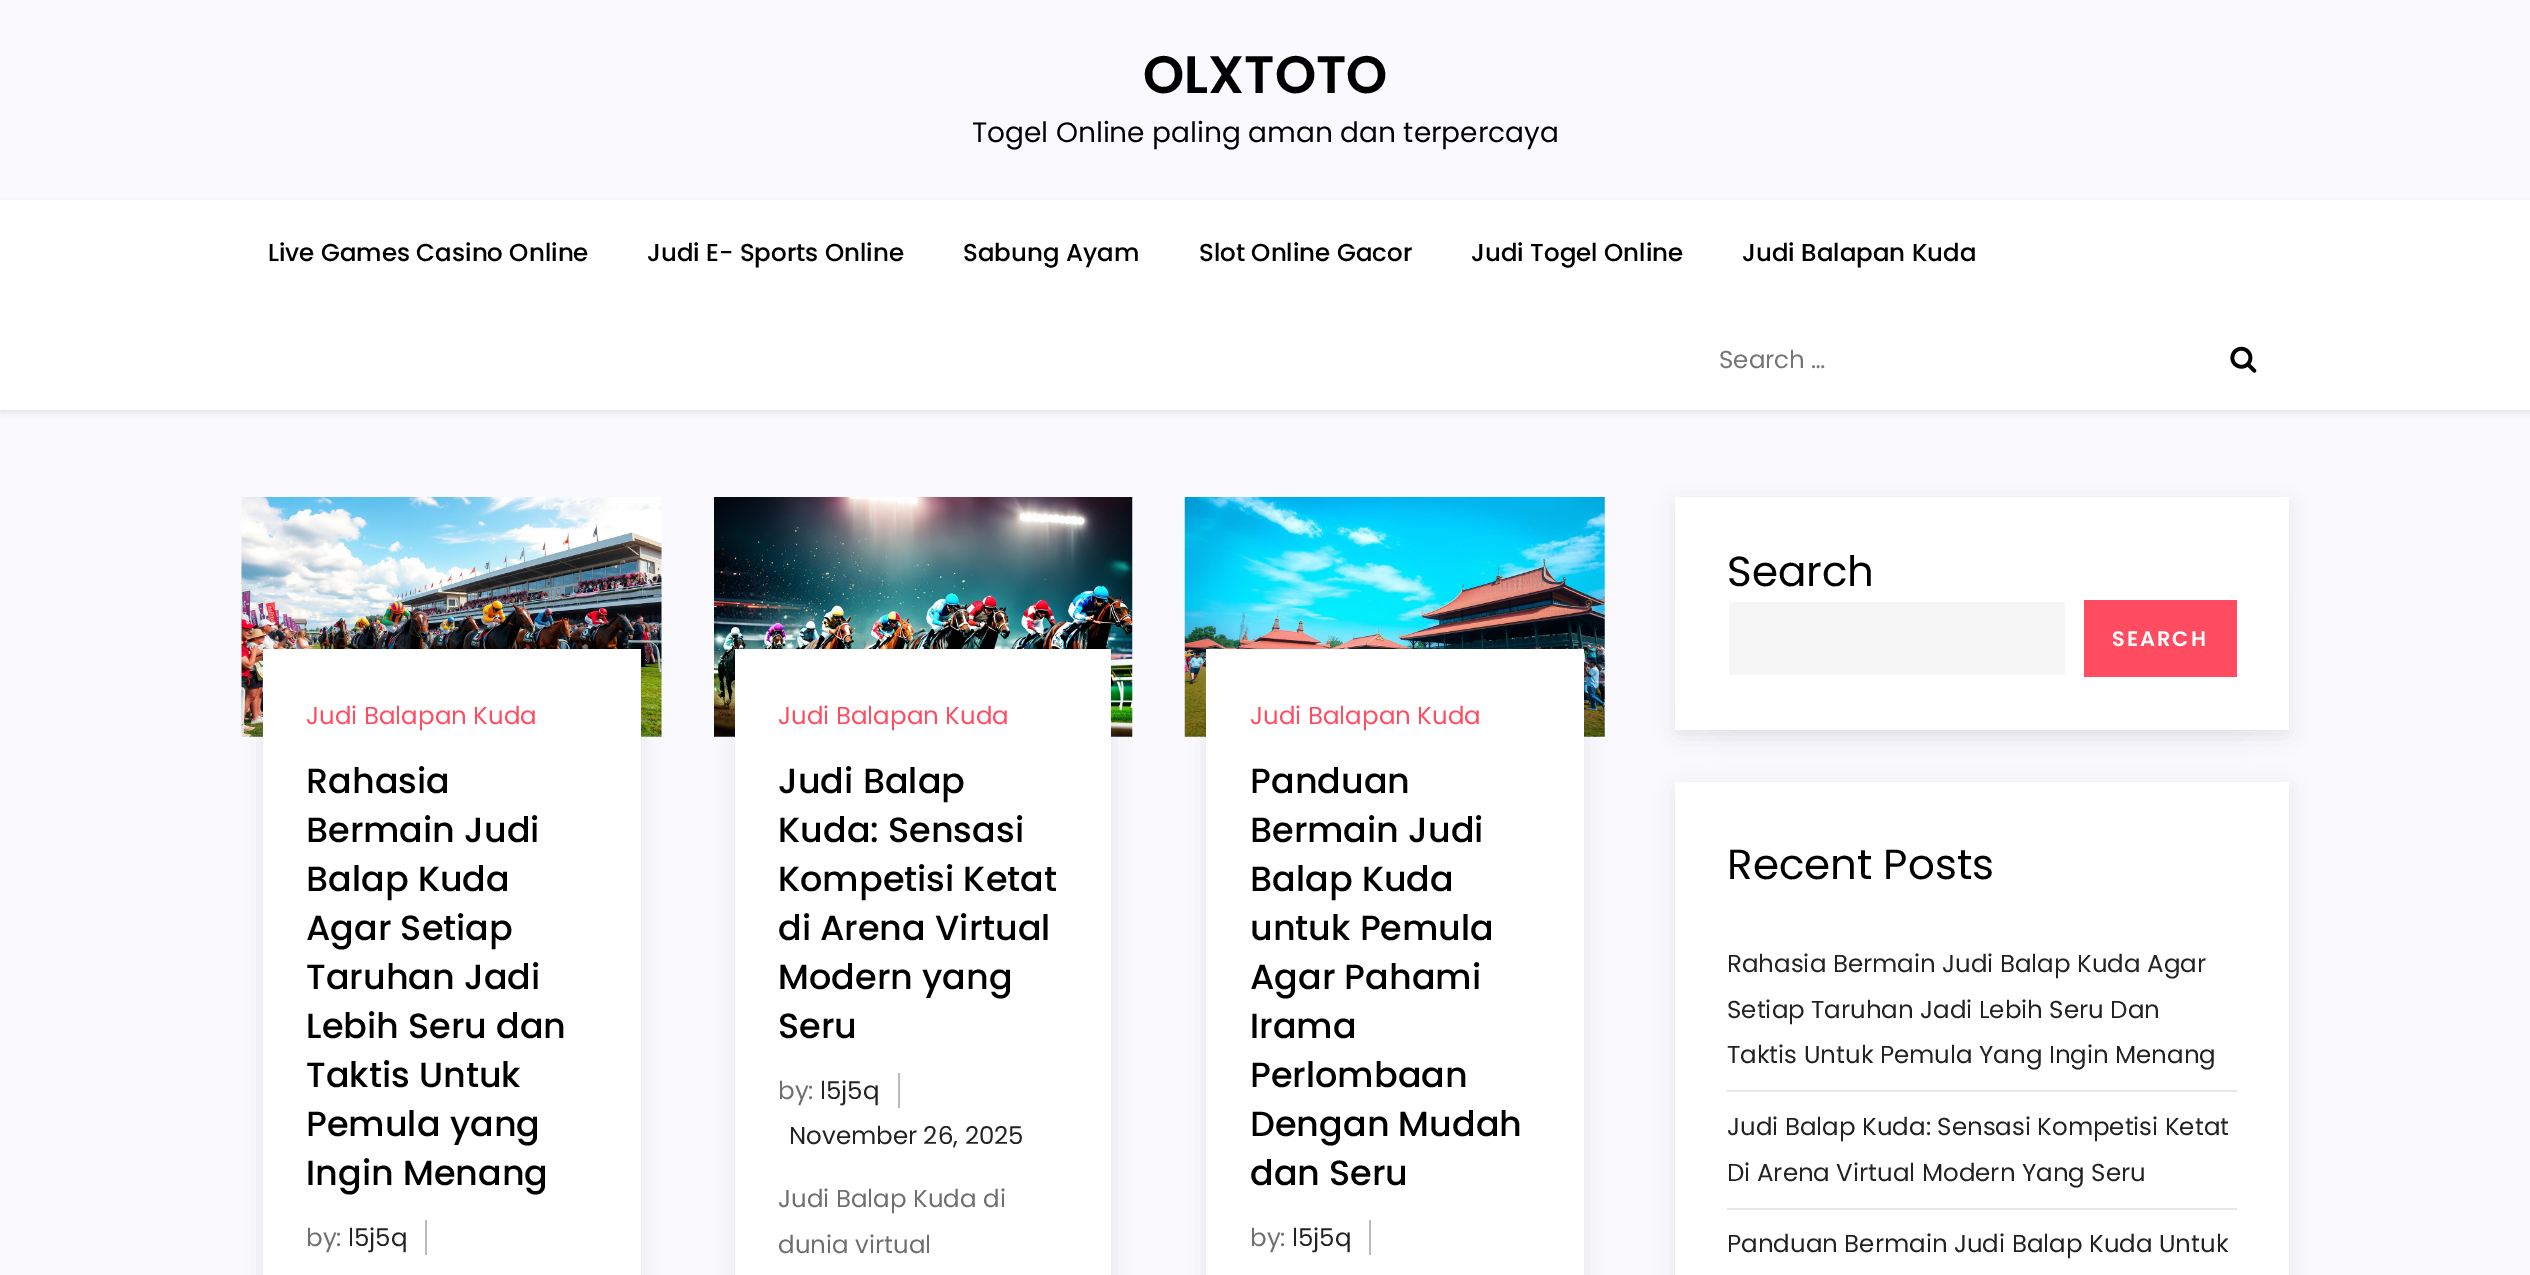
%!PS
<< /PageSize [2530 1275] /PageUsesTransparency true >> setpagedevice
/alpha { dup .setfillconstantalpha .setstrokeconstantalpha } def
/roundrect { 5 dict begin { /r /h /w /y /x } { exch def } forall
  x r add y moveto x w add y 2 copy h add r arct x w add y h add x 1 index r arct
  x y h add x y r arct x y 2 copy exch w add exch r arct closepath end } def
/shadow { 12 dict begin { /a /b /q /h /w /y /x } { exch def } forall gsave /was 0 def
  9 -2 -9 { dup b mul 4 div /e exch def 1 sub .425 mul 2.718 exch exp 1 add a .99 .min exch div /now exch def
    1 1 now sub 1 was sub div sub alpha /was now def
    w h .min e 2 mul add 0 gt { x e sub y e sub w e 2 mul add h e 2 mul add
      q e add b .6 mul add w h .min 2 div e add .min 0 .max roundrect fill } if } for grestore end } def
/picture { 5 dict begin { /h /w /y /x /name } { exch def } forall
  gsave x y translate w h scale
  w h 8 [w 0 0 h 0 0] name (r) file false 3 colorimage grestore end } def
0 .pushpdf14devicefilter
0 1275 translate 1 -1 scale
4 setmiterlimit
0.976 0.976 0.996 setrgbcolor
0 0 2530 1275 rectfill
/Poppins-SemiBold [52.5 0 0 -52.5 0 0] selectfont
0 setgray
1143 93 moveto (OLXTOTO) show
/Poppins-Regular [28 0 0 -28 0 0] selectfont
972 142 moveto (Togel Online paling aman dan terpercaya) show
0 203 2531 210 0 2.5 0.07 shadow
1 setgray
0 200 2530 210 rectfill
/Poppins-Medium [24.5 0 0 -24.5 0 0] selectfont
0 setgray
268 261 moveto (Live Games Casino Online) show
647 261 moveto (Judi E- Sports Online) show
963 261 moveto (Sabung Ayam) show
1199 261 moveto (Slot Online Gacor) show
1471 261 moveto (Judi Togel Online) show
1742 261 moveto (Judi Balapan Kuda) show
/Poppins-Regular [24.5 0 0 -24.5 0 0] selectfont
0.459 setgray
1719 368 moveto (Search …) show
(img1.rgb) 2230 346 27 27 picture
(img2.rgb) 241 497 421 240 picture
0.027 0.039 0.098 setrgbcolor
264 656 375 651 0 10.5 0.1 shadow
1 setgray
263 649 378 626 rectfill
1 0.298 0.376 setrgbcolor
306 724 moveto (Judi Balapan Kuda) show
/Poppins-Medium [35 0 0 -35 0 0] selectfont
0 setgray
306 793 moveto (Rahasia) show
306 842 moveto (Bermain Judi) show
306 891 moveto (Balap Kuda) show
306 940 moveto (Agar Setiap) show
306 989 moveto (Taruhan Jadi) show
306 1038 moveto (Lebih Seru dan) show
306 1087 moveto (Taktis Untuk) show
306 1136 moveto (Pemula yang) show
306 1185 moveto (Ingin Menang) show
/Poppins-Regular [24.5 0 0 -24.5 0 0] selectfont
0.435 setgray
306 1246 moveto (by:) show
0.133 setgray
348 1246 moveto (l5j5q) show
0.733 setgray
425 1220 2 35 rectfill
(img3.rgb) 714 497 419 240 picture
0.027 0.039 0.098 setrgbcolor
737 656 373 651 0 10.5 0.1 shadow
1 setgray
735 649 376 626 rectfill
1 0.298 0.376 setrgbcolor
778 724 moveto (Judi Balapan Kuda) show
/Poppins-Medium [35 0 0 -35 0 0] selectfont
0 setgray
778 793 moveto (Judi Balap) show
778 842 moveto (Kuda: Sensasi) show
778 891 moveto (Kompetisi Ketat) show
778 940 moveto (di Arena Virtual) show
778 989 moveto (Modern yang) show
778 1038 moveto (Seru) show
/Poppins-Regular [24.5 0 0 -24.5 0 0] selectfont
0.435 setgray
778 1099 moveto (by:) show
0.133 setgray
820 1099 moveto (l5j5q) show
0.733 setgray
898 1073 2 35 rectfill
0.133 setgray
789 1144 moveto (November 26, 2025) show
0.435 setgray
778 1207 moveto (Judi Balap Kuda di) show
778 1253 moveto (dunia virtual) show
(img4.rgb) 1184 497 421 240 picture
0.027 0.039 0.098 setrgbcolor
1208 656 374 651 0 10.5 0.1 shadow
1 setgray
1206 649 378 626 rectfill
1 0.298 0.376 setrgbcolor
1250 724 moveto (Judi Balapan Kuda) show
/Poppins-Medium [35 0 0 -35 0 0] selectfont
0 setgray
1250 793 moveto (Panduan) show
1250 842 moveto (Bermain Judi) show
1250 891 moveto (Balap Kuda) show
1250 940 moveto (untuk Pemula) show
1250 989 moveto (Agar Pahami) show
1250 1038 moveto (Irama) show
1250 1087 moveto (Perlombaan) show
1250 1136 moveto (Dengan Mudah) show
1250 1185 moveto (dan Seru) show
/Poppins-Regular [24.5 0 0 -24.5 0 0] selectfont
0.435 setgray
1250 1246 moveto (by:) show
0.133 setgray
1292 1246 moveto (l5j5q) show
0.733 setgray
1369 1220 2 35 rectfill
0.027 0.039 0.098 setrgbcolor
1727 588 510 128 0 23.5 0.1 shadow
1677 504 610 229 0 10.5 0.1 shadow
1 setgray
1675 497 614 233 rectfill
/Poppins-Regular [42 0 0 -42 0 0] selectfont
0 setgray
1727 586 moveto (Search) show
0.965 setgray
1729 602 336 73 rectfill
1 0.298 0.376 setrgbcolor
2084 600 153 77 rectfill
/Poppins-SemiBold [21 0 0 -21 0 0] selectfont
1 setgray
2112 646 moveto 2 0 (SEARCH) ashow
0.027 0.039 0.098 setrgbcolor
1677 789 610 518 0 10.5 0.1 shadow
1 setgray
1675 782 614 493 rectfill
/Poppins-Regular [42 0 0 -42 0 0] selectfont
0 setgray
1727 879 moveto (Recent Posts) show
0.906 setgray
1727 1090 510 2 rectfill
/Poppins-Regular [24.5 0 0 -24.5 0 0] selectfont
0.133 setgray
1727 972 moveto (Rahasia Bermain Judi Balap Kuda Agar) show
1727 1018 moveto (Setiap Taruhan Jadi Lebih Seru Dan) show
1727 1063 moveto (Taktis Untuk Pemula Yang Ingin Menang) show
0.906 setgray
1727 1208 510 2 rectfill
0.133 setgray
1727 1135 moveto (Judi Balap Kuda: Sensasi Kompetisi Ketat) show
1727 1181 moveto (Di Arena Virtual Modern Yang Seru) show
1727 1252 moveto (Panduan Bermain Judi Balap Kuda Untuk) show
.poppdf14devicefilter showpage
